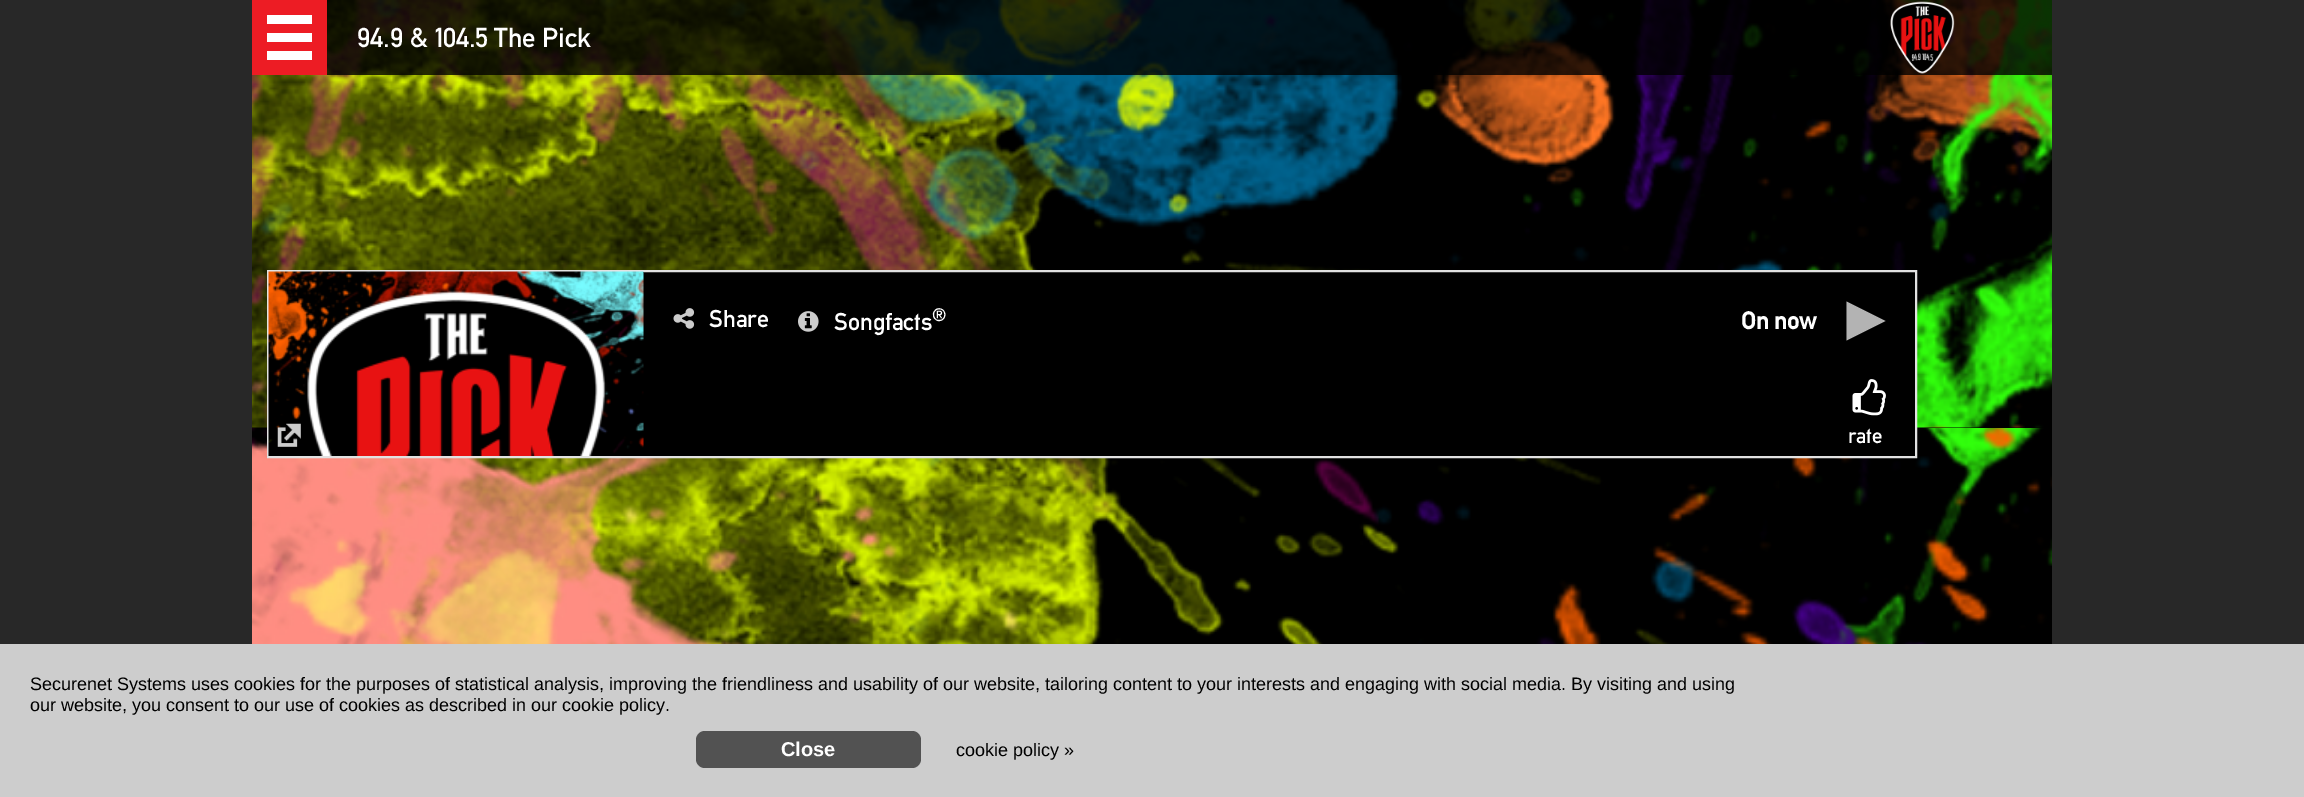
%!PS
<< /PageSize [2304 797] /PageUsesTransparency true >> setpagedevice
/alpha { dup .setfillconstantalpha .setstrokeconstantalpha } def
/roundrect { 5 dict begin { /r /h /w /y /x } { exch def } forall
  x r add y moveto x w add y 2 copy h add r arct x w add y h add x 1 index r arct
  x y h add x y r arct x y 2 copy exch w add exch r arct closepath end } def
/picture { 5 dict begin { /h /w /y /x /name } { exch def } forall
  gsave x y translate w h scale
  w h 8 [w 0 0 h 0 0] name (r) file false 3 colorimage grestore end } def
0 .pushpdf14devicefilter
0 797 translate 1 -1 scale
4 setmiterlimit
0.157 setgray
0 0 2304 797 rectfill
(img1.rgb) 252 428 1800 216 picture
0 setgray
252 427 1800 1 rectfill
(img3.rgb) 252 0 1800 428 picture
0.8 alpha
327 0 1725 75 rectfill
1 alpha
0.929 0.11 0.141 setrgbcolor
252 0 75 75 rectfill
1 setgray
267 15 45 9 rectfill
267 33 45 9 rectfill
267 51 45 9 rectfill
/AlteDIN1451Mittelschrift-Regular [27 0 0 -27 0 0] selectfont
357 47 moveto (94.9 & 104.5 The Pick) show
(img2.rgb) 1890 1 65 73 picture
0 setgray
643 272 1272 184 rectfill
0.886 setgray
2 setlinewidth
268 271 1648 186 rectstroke
(img4.rgb) 268 271 376 185 picture
(img5.rgb) 673 308 22 21 picture
/AlteDIN1451Mittelschrift-Regular [24 0 0 -24 0 0] selectfont
1 setgray
709 327 moveto (Share) show
(img6.rgb) 798 311 21 21 picture
834 330 moveto (Songfacts) show
/AlteDIN1451Mittelschrift-Regular [18 0 0 -18 0 0] selectfont
932 321 moveto (®) show
/AlteDIN1451Mittelschrift-Bold [24 0 0 -24 0 0] selectfont
1741 329 moveto (On now) show
0.702 setgray
newpath 1846.5 340.5 moveto 1846.5 301.5 lineto 1885.5 321 lineto closepath fill
(img7.rgb) 1852 379 34 37 picture
/AlteDIN1451Mittelschrift-Regular [21 0 0 -21 0 0] selectfont
1 setgray
1848 443 moveto (rate) show
(img8.rgb) 277 423 24 24 picture
0.804 setgray
0 644 2304 153 rectfill
/LiberationSans-Regular [18 0 0 -18 0 0] selectfont
0 setgray
30 690 moveto (Securenet Systems uses cookies for the purposes of statistical analysis, improving the friendliness and usability of our website, tailoring content to your interests and engaging with social media. By visiting and using) show
30 711 moveto (our website, you consent to our use of cookies as described in our cookie policy.) show
0.322 setgray
696 731 225 37 9 roundrect fill
/LiberationSans-Bold [20 0 0 -20 0 0] selectfont
1 setgray
781 756 moveto (Close) show
/LiberationSans-Regular [18 0 0 -18 0 0] selectfont
0 setgray
956 756 moveto (cookie policy ») show
.poppdf14devicefilter showpage
